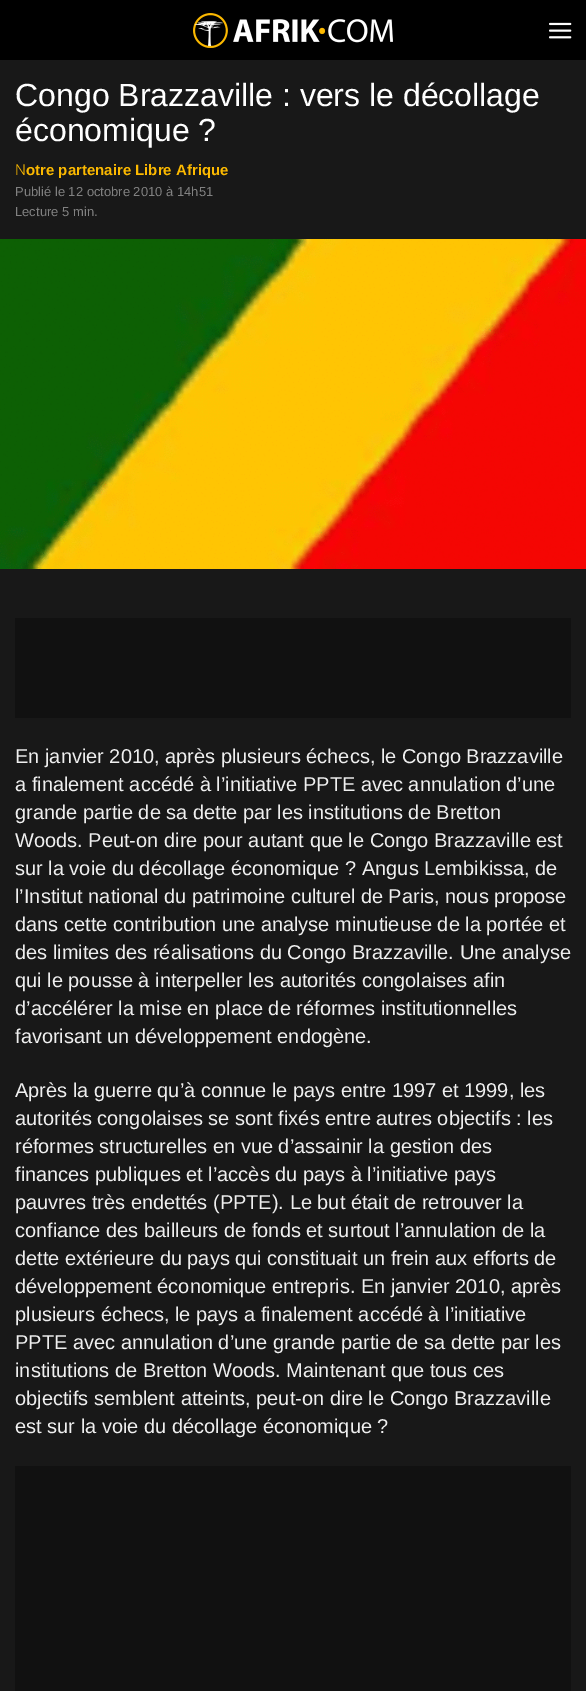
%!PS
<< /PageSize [586 1691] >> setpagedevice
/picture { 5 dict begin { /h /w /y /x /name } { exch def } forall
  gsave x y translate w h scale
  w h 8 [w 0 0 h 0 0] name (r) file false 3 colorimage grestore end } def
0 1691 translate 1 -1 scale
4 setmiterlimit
0.094 setgray
0 0 586 1691 rectfill
0 setgray
0 0 586 60 rectfill
(img1.rgb) 193 13 200 35 picture
(img2.rgb) 549 22 23 17 picture
/LiberationSans-Regular [32 0 0 -32 0 0] selectfont
1 setgray
15 106 moveto (Congo Brazzaville : vers le décollage) show
15 141 moveto (économique ?) show
/NotoSans-Light [15 0 0 -15 0 0] selectfont
0.988 0.725 0 setrgbcolor
15 175 moveto (N) show
/LiberationSans-Bold [15 0 0 -15 0 0] selectfont
26 175 moveto (otre partenaire Libre Afrique) show
/LiberationSans-Regular [13 0 0 -13 0 0] selectfont
0.506 setgray
15 196 moveto (Publié le 12 octobre 2010 à 14h51) show
15 216 moveto (Lecture 5 min.) show
(img3.rgb) 0 239 586 330 picture
0.067 setgray
15 618 556 100 rectfill
/LiberationSans-Regular [20 0 0 -20 0 0] selectfont
0.937 setgray
15 763 moveto (En janvier 2010, après plusieurs échecs, le Congo Brazzaville) show
15 791 moveto (a finalement accédé à l’initiative PPTE avec annulation d’une) show
15 819 moveto (grande partie de sa dette par les institutions de Bretton) show
15 847 moveto (Woods. Peut-on dire pour autant que le Congo Brazzaville est) show
15 875 moveto (sur la voie du décollage économique ? Angus Lembikissa, de) show
15 903 moveto (l’Institut national du patrimoine culturel de Paris, nous propose) show
15 931 moveto (dans cette contribution une analyse minutieuse de la portée et) show
15 959 moveto (des limites des réalisations du Congo Brazzaville. Une analyse) show
15 987 moveto (qui le pousse à interpeller les autorités congolaises afin) show
15 1015 moveto (d’accélérer la mise en place de réformes institutionnelles) show
15 1043 moveto (favorisant un développement endogène.) show
15 1097 moveto (Après la guerre qu’à connue le pays entre 1997 et 1999, les) show
15 1125 moveto (autorités congolaises se sont fixés entre autres objectifs : les) show
15 1153 moveto (réformes structurelles en vue d’assainir la gestion des) show
15 1181 moveto (finances publiques et l’accès du pays à l’initiative pays) show
15 1209 moveto (pauvres très endettés \(PPTE\). Le but était de retrouver la) show
15 1237 moveto (confiance des bailleurs de fonds et surtout l’annulation de la) show
15 1265 moveto (dette extérieure du pays qui constituait un frein aux efforts de) show
15 1293 moveto (développement économique entrepris. En janvier 2010, après) show
15 1321 moveto (plusieurs échecs, le pays a finalement accédé à l’initiative) show
15 1349 moveto (PPTE avec annulation d’une grande partie de sa dette par les) show
15 1377 moveto (institutions de Bretton Woods. Maintenant que tous ces) show
15 1405 moveto (objectifs semblent atteints, peut-on dire le Congo Brazzaville) show
15 1433 moveto (est sur la voie du décollage économique ?) show
0.067 setgray
15 1466 556 225 rectfill
showpage
